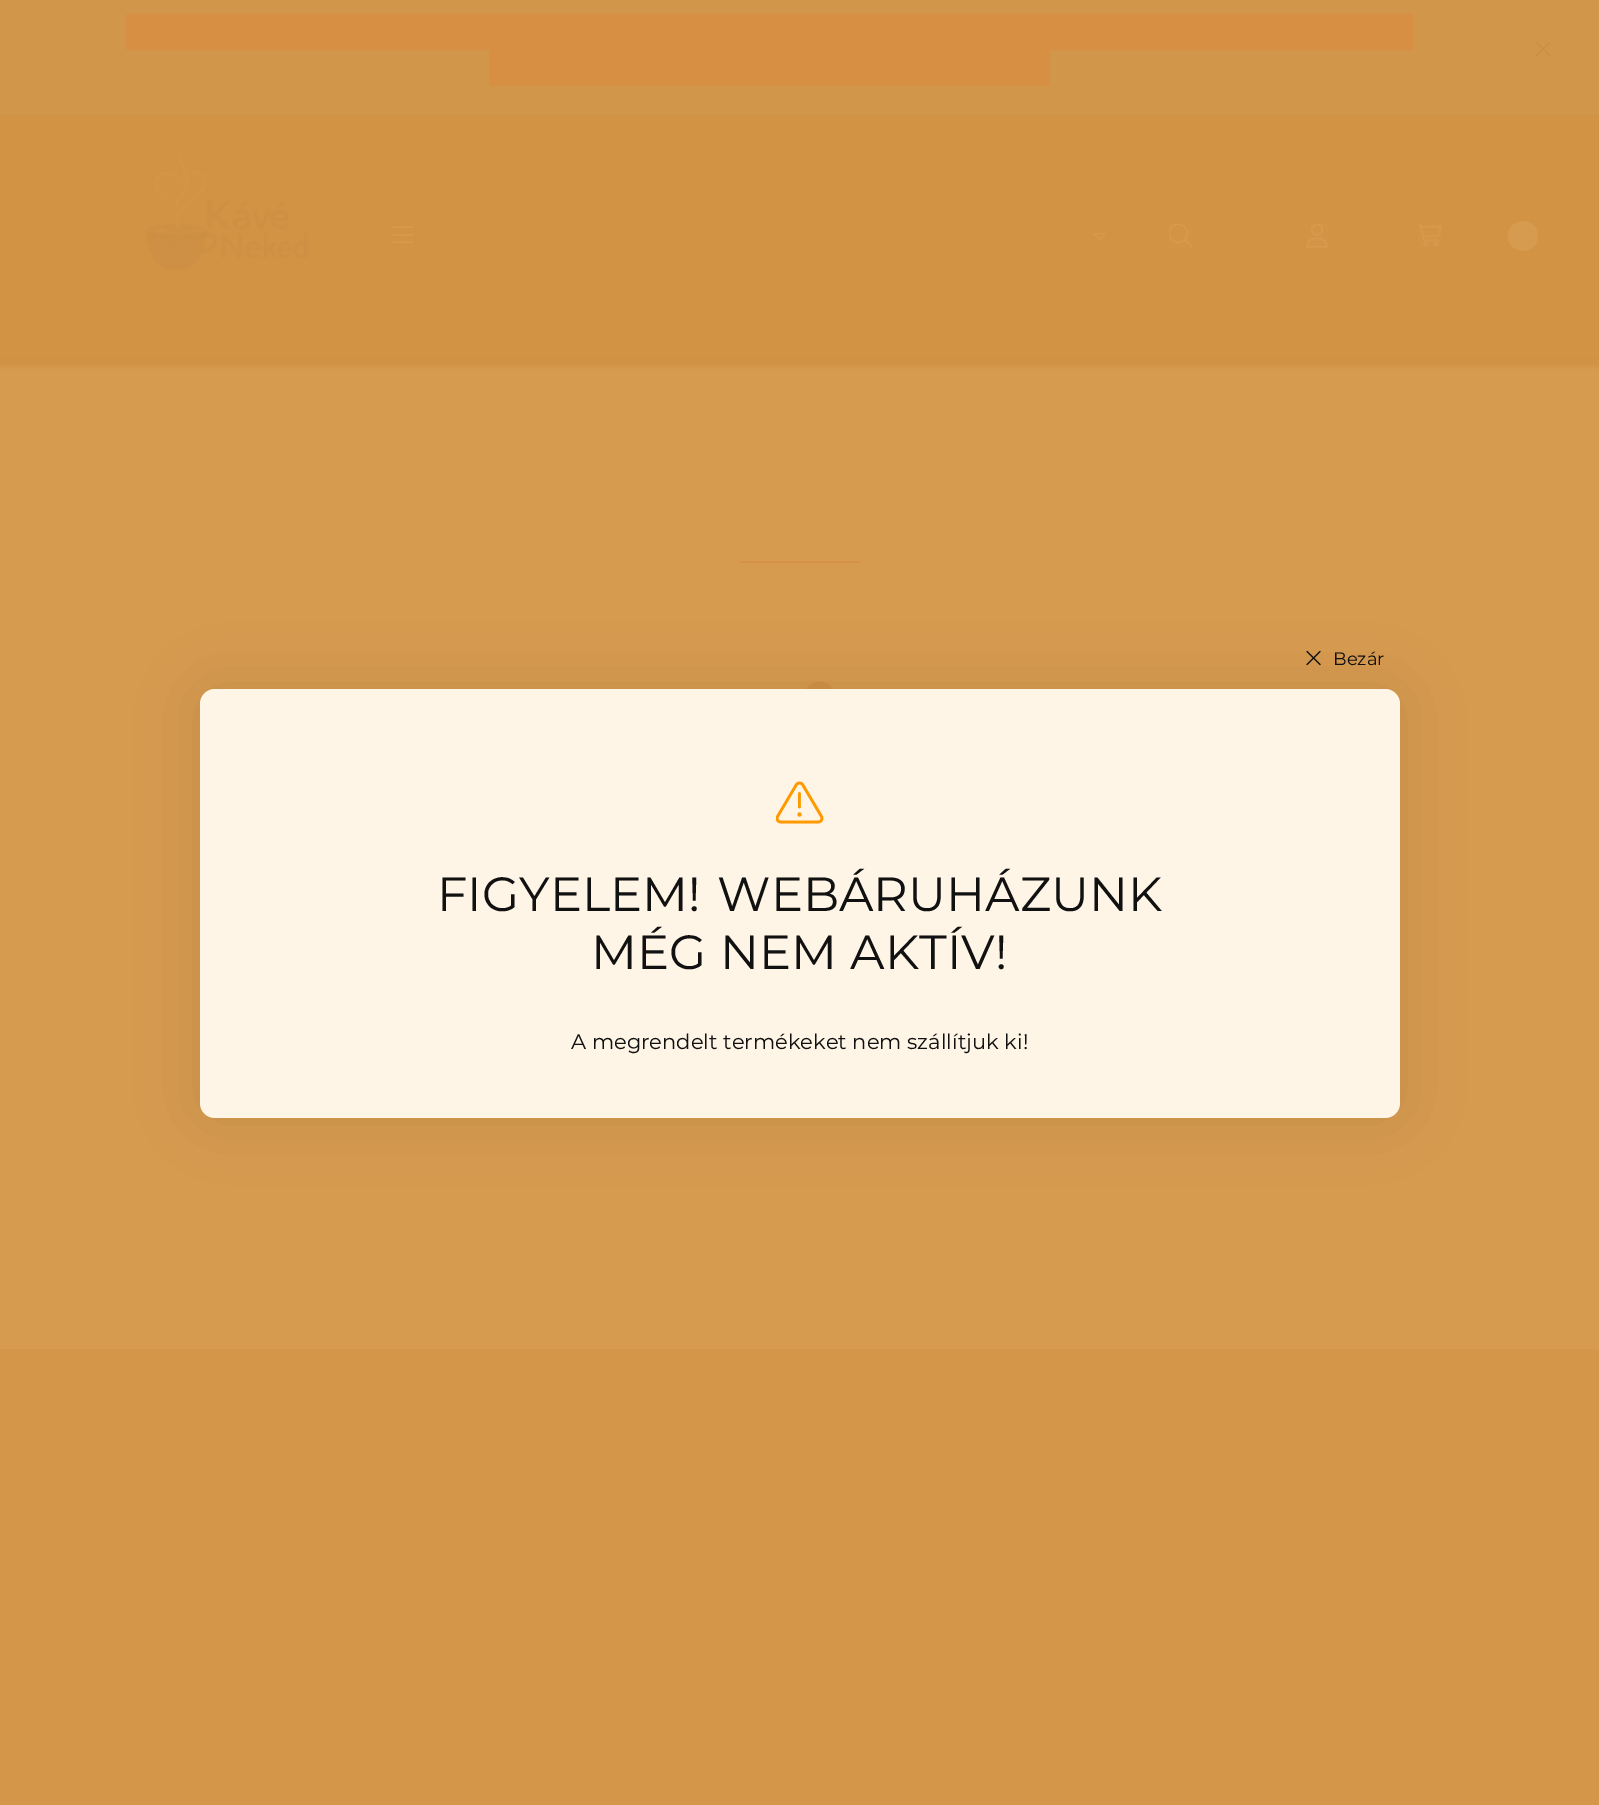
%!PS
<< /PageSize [1599 1805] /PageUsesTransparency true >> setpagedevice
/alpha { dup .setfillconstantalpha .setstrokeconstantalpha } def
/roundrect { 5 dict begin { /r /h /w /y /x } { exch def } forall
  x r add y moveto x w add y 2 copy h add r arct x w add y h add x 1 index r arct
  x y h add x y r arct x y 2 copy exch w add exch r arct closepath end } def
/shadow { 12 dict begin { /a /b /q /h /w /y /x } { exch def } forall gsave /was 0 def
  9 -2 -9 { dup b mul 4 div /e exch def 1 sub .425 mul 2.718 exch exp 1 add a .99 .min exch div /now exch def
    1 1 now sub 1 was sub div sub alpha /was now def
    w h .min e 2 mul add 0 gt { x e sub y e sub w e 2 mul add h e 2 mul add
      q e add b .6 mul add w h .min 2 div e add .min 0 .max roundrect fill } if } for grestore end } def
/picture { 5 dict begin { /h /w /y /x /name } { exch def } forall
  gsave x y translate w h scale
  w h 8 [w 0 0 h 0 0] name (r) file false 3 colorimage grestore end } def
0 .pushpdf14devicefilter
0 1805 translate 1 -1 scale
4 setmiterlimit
0.843 0.608 0.31 setrgbcolor
0 0 1599 1805 rectfill
0.824 0.576 0.267 setrgbcolor
0 116 1599 240 rectfill
gsave
newpath 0 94 moveto 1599 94 lineto 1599 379 lineto 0 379 lineto closepath 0 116 moveto 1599 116 lineto 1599 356 lineto 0 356 lineto closepath eoclip newpath
0.812 0.569 0.263 setrgbcolor
-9 107 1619 259 0 4 1 shadow
grestore
0.824 0.588 0.29 setrgbcolor
0 0 1599 115 rectfill
0.843 0.561 0.263 setrgbcolor
126 14 1287 36 rectfill
489 50 561 36 rectfill
(img1.rgb) 1535 41 16 16 picture
(img2.rgb) 145 147 164 124 picture
(img3.rgb) 393 226 21 17 picture
(img4.rgb) 1094 233 12 7 picture
(img5.rgb) 1169 224 24 24 picture
(img6.rgb) 1306 224 22 24 picture
(img7.rgb) 1418 224 24 23 picture
0.843 0.608 0.31 setrgbcolor
newpath 1523 236 15 0 360 arc closepath fill
0.843 0.573 0.275 setrgbcolor
740 561 120 2 rectfill
(img8.rgb) 806 681 27 8 picture
0 setgray
200 689 1200 429 15 30 0.1 shadow
(img9.rgb) 1306 650 15 16 picture
/Montserrat-Regular [18 0 0 -18 0 0] selectfont
0.067 setgray
1333 665 moveto (Bezár) show
1 0.961 0.902 setrgbcolor
200 689 1200 429 15 roundrect fill
(img10.rgb) 776 781 48 43 picture
/Montserrat-Regular [48 0 0 -48 0 0] selectfont
0.067 setgray
437 911 moveto 4 0 32 (FIGYELEM! WEBÁRUHÁZUNK) widthshow
591 969 moveto 1 0 32 (MÉG NEM AKTÍV!) widthshow
/Montserrat-Regular [21 0 0 -21 0 0] selectfont
571 1049 moveto (A megrendelt termékeket nem szállítjuk ki!) show
0.831 0.592 0.29 setrgbcolor
0 1349 1599 456 rectfill
.poppdf14devicefilter showpage
